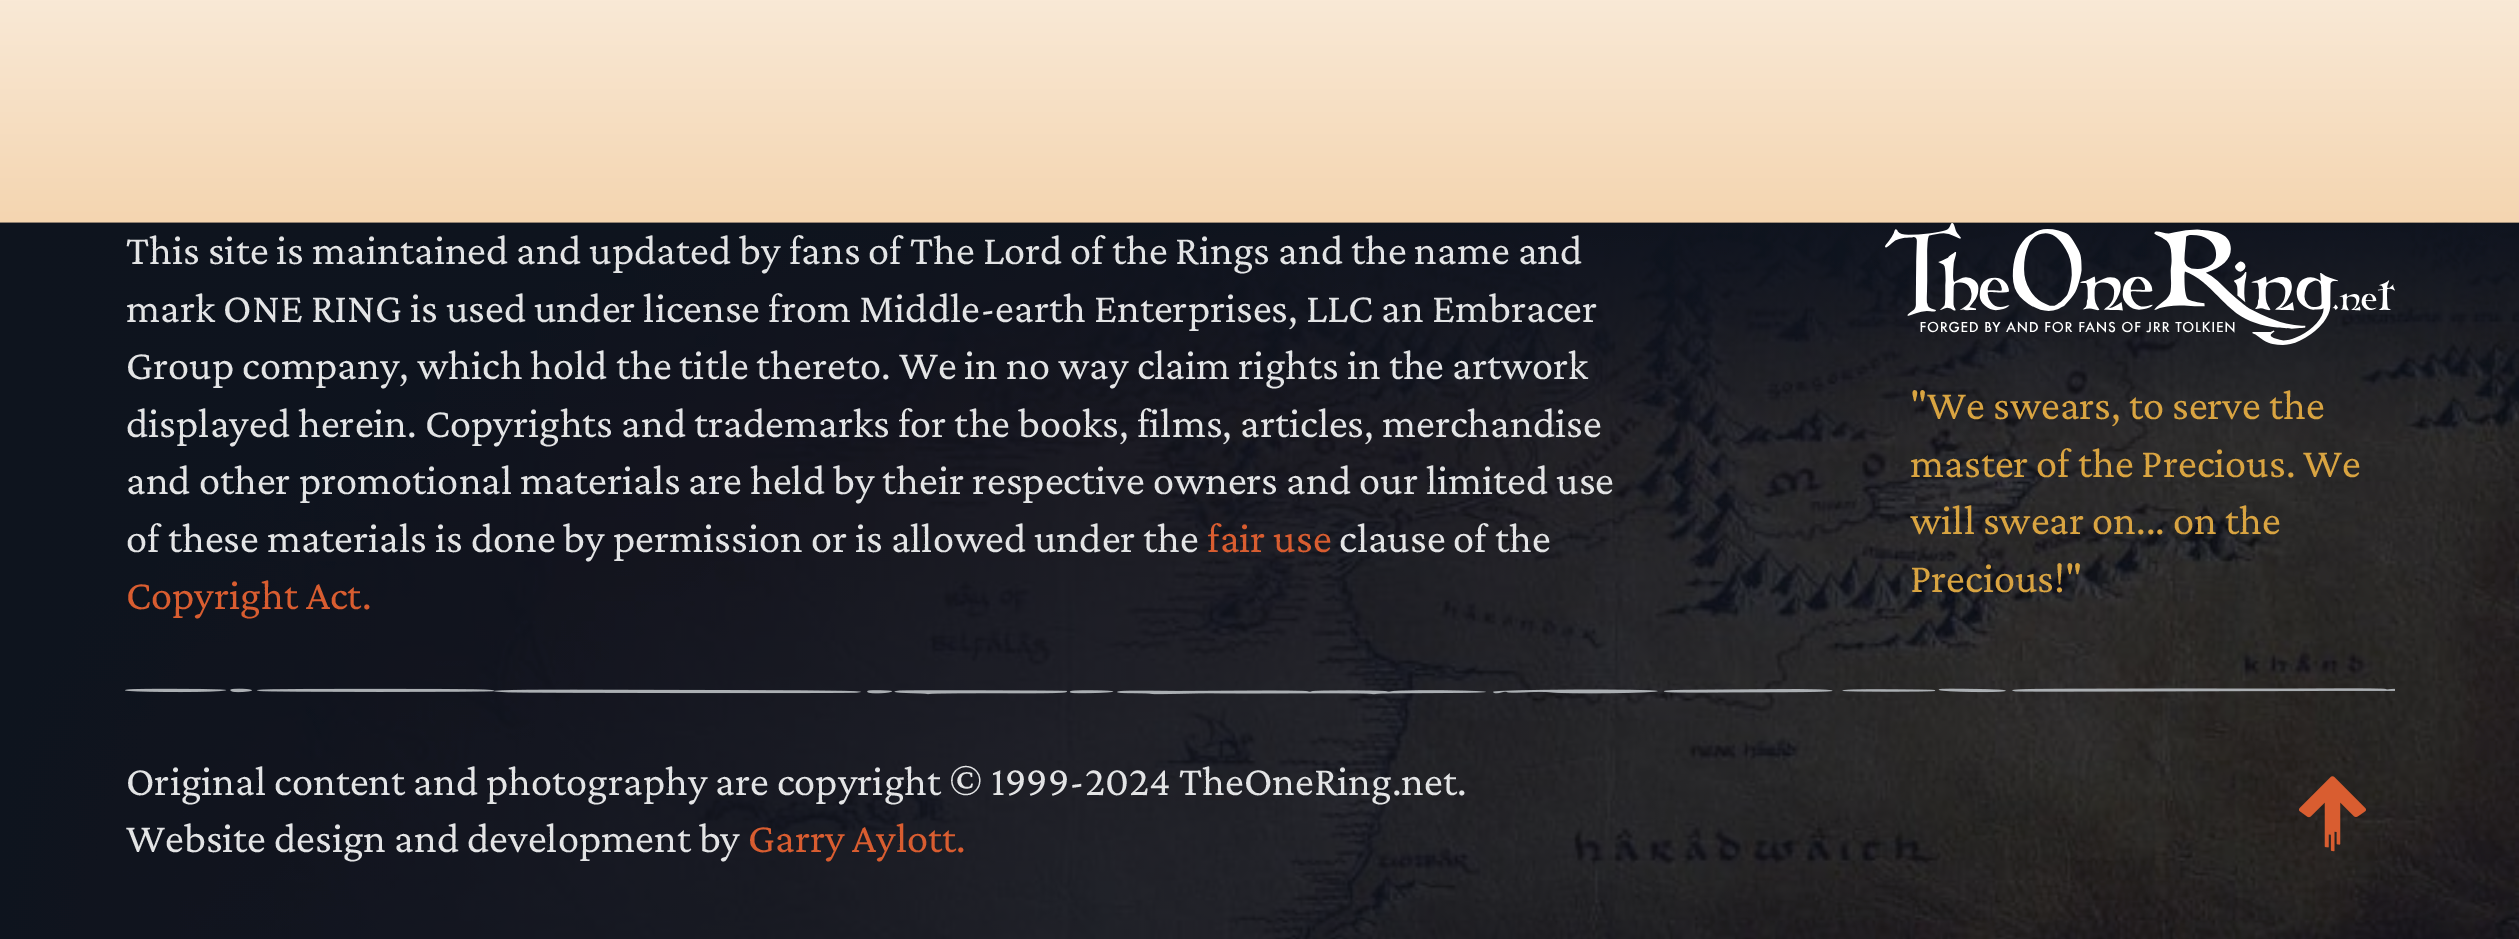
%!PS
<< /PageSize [2519 939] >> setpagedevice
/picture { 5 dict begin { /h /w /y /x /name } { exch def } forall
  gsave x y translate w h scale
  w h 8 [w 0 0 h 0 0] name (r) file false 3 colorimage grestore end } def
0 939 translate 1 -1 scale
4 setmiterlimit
1 setgray
0 0 2519 939 rectfill
gsave newpath 0 0 moveto 2519 0 lineto 2519 223 lineto 0 223 lineto closepath clip newpath
<< /ShadingType 2 /ColorSpace /DeviceRGB /Coords [1260 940 1260 -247] /Extend [true true] /Function << /FunctionType 3 /Domain [0 1] /Functions [<< /FunctionType 2 /Domain [0 1] /C0 [0.925 0.71 0.455] /C1 [0.925 0.71 0.455] /N 1 >> << /FunctionType 2 /Domain [0 1] /C0 [0.925 0.71 0.455] /C1 [1 1 1] /N 1 >>] /Bounds [0.3] /Encode [0 1 0 1] >> >> shfill grestore
0.059 0.078 0.122 setrgbcolor
0 223 2519 716 rectfill
(img1.rgb) 0 222 2519 717 picture
/CrimsonPro-Regular [42.5 0 0 -42.5 0 0] selectfont
0.89 0.894 0.898 setrgbcolor
126 264 moveto (This site is maintained and updated by fans of The Lord of the Rings and the name and) show
126 322 moveto (mark ONE RING is used under license from Middle-earth Enterprises, LLC an Embracer) show
126 379 moveto (Group company, which hold the title thereto. We in no way claim rights in the artwork) show
126 437 moveto (displayed herein. Copyrights and trademarks for the books, films, articles, merchandise) show
126 494 moveto (and other promotional materials are held by their respective owners and our limited use) show
126 552 moveto (of these materials is done by permission or is allowed under the) show
0.851 0.365 0.188 setrgbcolor
1207 552 moveto (fair use) show
0.89 0.894 0.898 setrgbcolor
1339 552 moveto (clause of the) show
0.851 0.365 0.188 setrgbcolor
126 609 moveto (Copyright Act.) show
(img2.rgb) 1885 223 510 122 picture
0.851 0.643 0.255 setrgbcolor
1910 419 moveto ("We swears, to serve the) show
1910 477 moveto (master of the Precious. We) show
1910 534 moveto (will swear on... on the) show
1910 592 moveto (Precious!") show
(img3.rgb) 125 688 2270 7 picture
0.89 0.894 0.898 setrgbcolor
126 795 moveto (Original content and photography are copyright © 1999-2024 TheOneRing.net.) show
126 852 moveto (Website design and development by) show
0.851 0.365 0.188 setrgbcolor
748 852 moveto (Garry Aylott.) show
(img4.rgb) 2299 776 67 76 picture
showpage
